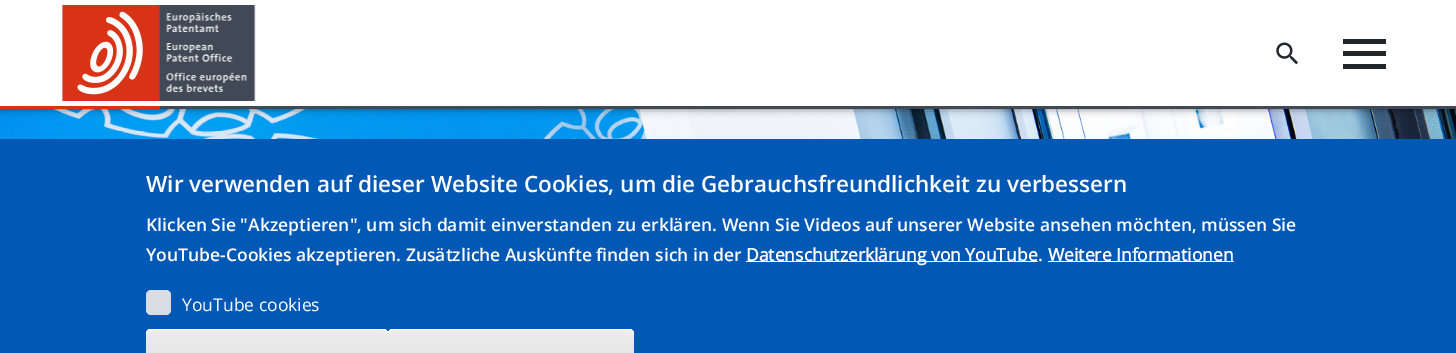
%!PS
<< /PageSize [1456 353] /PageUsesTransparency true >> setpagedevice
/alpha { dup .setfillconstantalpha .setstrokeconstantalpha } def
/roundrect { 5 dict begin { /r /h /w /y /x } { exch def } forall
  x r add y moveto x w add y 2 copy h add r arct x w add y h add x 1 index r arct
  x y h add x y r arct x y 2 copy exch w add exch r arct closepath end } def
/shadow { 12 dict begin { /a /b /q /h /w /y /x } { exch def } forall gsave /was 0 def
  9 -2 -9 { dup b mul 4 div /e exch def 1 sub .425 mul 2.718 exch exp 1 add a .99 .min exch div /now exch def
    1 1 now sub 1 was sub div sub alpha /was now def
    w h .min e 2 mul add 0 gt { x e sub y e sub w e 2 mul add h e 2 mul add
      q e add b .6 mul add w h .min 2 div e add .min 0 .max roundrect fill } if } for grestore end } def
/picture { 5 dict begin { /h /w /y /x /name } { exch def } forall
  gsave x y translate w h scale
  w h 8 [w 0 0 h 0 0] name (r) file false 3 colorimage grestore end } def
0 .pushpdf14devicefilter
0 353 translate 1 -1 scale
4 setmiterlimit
1 setgray
0 0 1456 353 rectfill
(img4.rgb) 0 109 1456 30 picture
0 setgray
0 0 1456 109 0 4 0.5 shadow
1 setgray
0 0 1456 106 rectfill
0.251 0.286 0.333 setrgbcolor
160 106 1296 3 rectfill
(img1.rgb) 62 5 194 96 picture
(img2.rgb) 63 5 96 96 picture
0.851 0.2 0.09 setrgbcolor
0 106 160 3 rectfill
(img3.rgb) 1276 42 22 23 picture
0.129 0.145 0.173 setrgbcolor
1343 39 43 5 rectfill
1343 51 43 5 rectfill
1343 64 43 5 rectfill
0.008 0.345 0.71 setrgbcolor
0 139 1456 214 rectfill
/OpenSans-SemiBold [22.5 0 0 -22.5 0 0] selectfont
1 setgray
146 192 moveto (Wir verwenden auf dieser Website Cookies, um die Gebrauchsfreundlichkeit zu verbessern) show
/OpenSans-SemiBold [17.5 0 0 -17.5 0 0] selectfont
146 231 moveto (Klicken Sie "Akzeptieren", um sich damit einverstanden zu erklären. Wenn Sie Videos auf unserer Website ansehen möchten, müssen Sie) show
146 261 moveto (YouTube-Cookies akzeptieren. Zusätzliche Auskünfte finden sich in der) show
746 261 292 1 rectfill
/OpenSans-Bold [17.5 0 0 -17.5 0 0] selectfont
746 261 moveto (Datenschutzerklärung von YouTube) show
/OpenSans-SemiBold [17.5 0 0 -17.5 0 0] selectfont
1038 261 moveto (.) show
1048 261 186 1 rectfill
/OpenSans-Bold [17.5 0 0 -17.5 0 0] selectfont
1048 261 moveto (Weitere Informationen) show
0.851 0.867 0.89 setrgbcolor
146 290 25 25 5 roundrect fill
/OpenSans-Regular [17.5 0 0 -17.5 0 0] selectfont
1 setgray
182 311 moveto (YouTube cookies) show
gsave 146 329 242 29 5 roundrect clip newpath
<< /ShadingType 2 /ColorSpace /DeviceRGB /Coords [267 329 267 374] /Extend [true true] /Function << /FunctionType 3 /Domain [0 1] /Functions [<< /FunctionType 2 /Domain [0 1] /C0 [0.929 0.929 0.929] /C1 [0.929 0.929 0.929] /N 1 >> << /FunctionType 2 /Domain [0 1] /C0 [0.929 0.929 0.929] /C1 [0.875 0.875 0.875] /N 1 >>] /Bounds [0.05] /Encode [0 1 0 1] >> >> shfill grestore
newpath 151 330 moveto 382 330 lineto 385 330 388 332 388 335 curveto 388 334 lineto 388 331 386 329 383 329 curveto 151 329 lineto 148 329 146 331 146 334 curveto 146 335 lineto 146 332 148 330 151 330 curveto closepath fill
gsave 388 329 246 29 5 roundrect clip newpath
<< /ShadingType 2 /ColorSpace /DeviceRGB /Coords [511 329 511 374] /Extend [true true] /Function << /FunctionType 3 /Domain [0 1] /Functions [<< /FunctionType 2 /Domain [0 1] /C0 [0.929 0.929 0.929] /C1 [0.929 0.929 0.929] /N 1 >> << /FunctionType 2 /Domain [0 1] /C0 [0.929 0.929 0.929] /C1 [0.875 0.875 0.875] /N 1 >>] /Bounds [0.05] /Encode [0 1 0 1] >> >> shfill grestore
newpath 392 330 moveto 629 330 lineto 632 330 634 332 634 335 curveto 634 334 lineto 634 331 632 329 629 329 curveto 393 329 lineto 390 329 388 331 388 334 curveto 388 335 lineto 388 332 390 330 392 330 curveto closepath fill
.poppdf14devicefilter showpage
